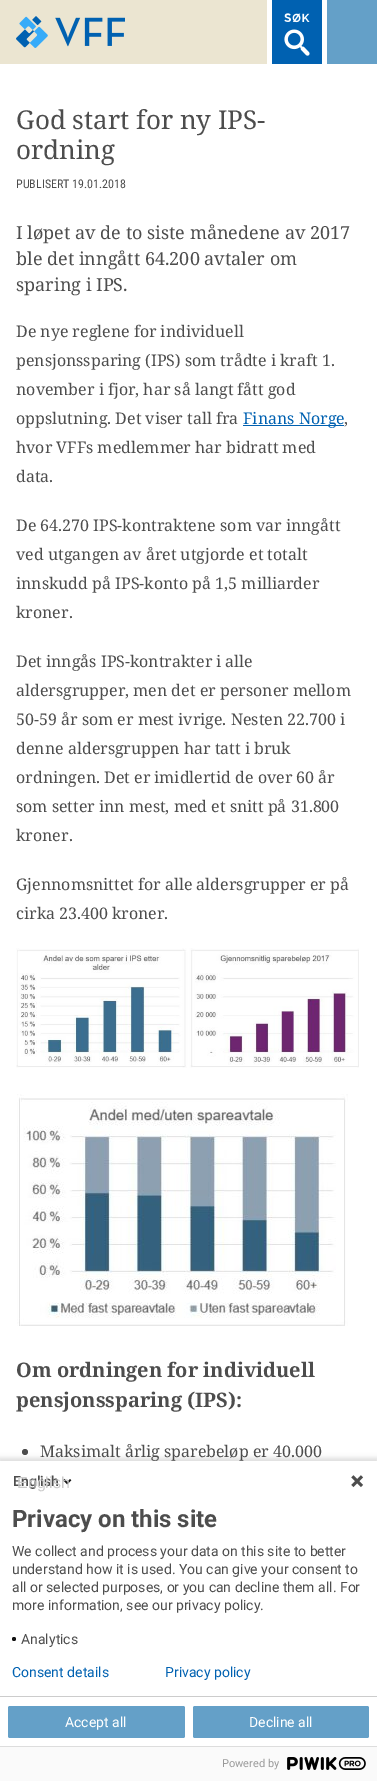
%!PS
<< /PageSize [377 1781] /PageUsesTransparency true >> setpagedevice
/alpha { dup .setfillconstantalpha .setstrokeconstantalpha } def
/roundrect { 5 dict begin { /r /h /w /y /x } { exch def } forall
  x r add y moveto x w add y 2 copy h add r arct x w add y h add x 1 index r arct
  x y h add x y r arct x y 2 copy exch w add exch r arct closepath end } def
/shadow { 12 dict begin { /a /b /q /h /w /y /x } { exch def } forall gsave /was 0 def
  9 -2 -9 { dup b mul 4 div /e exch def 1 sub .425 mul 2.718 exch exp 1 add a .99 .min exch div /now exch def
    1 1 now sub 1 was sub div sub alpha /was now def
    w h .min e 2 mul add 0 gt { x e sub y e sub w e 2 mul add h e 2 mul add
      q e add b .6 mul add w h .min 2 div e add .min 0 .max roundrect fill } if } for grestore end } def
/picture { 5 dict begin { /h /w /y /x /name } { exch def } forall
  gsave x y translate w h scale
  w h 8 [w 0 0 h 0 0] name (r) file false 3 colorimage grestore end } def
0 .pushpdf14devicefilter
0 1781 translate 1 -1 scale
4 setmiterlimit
1 setgray
0 0 377 1781 rectfill
0.922 0.898 0.82 setrgbcolor
0 0 267 64 rectfill
(img1.rgb) 16 16 109 32 picture
0 0.38 0.694 setrgbcolor
272 0 50 64 rectfill
(img2.rgb) 284 13 26 43 picture
0.392 0.627 0.784 setrgbcolor
327 0 50 64 rectfill
/NotoSerif-Regular [26 0 0 -26 0 0] selectfont
0.302 setgray
16 129 moveto (God start for ny IPS-) show
16 159 moveto (ordning) show
/RobotoCondensed-Regular [12 0 0 -12 0 0] selectfont
16 188 moveto (PUBLISERT 19.01.2018) show
/NotoSerif-Regular [18 0 0 -18 0 0] selectfont
16 239 moveto (I løpet av de to siste månedene av 2017) show
16 265 moveto (ble det inngått 64.200 avtaler om) show
16 291 moveto (sparing i IPS.) show
/NotoSerif-Regular [16 0 0 -16 0 0] selectfont
16 337 moveto (De nye reglene for individuell) show
16 366 moveto (pensjonssparing \(IPS\) som trådte i kraft 1.) show
16 395 moveto (november i fjor, har så langt fått god) show
16 424 moveto (oppslutning. Det viser tall fra) show
0 0.38 0.694 setrgbcolor
243 425 101 1 rectfill
243 424 moveto (Finans Norge) show
0.302 setgray
344 424 moveto (,) show
16 453 moveto (hvor VFFs medlemmer har bidratt med) show
16 482 moveto (data.) show
16 531 moveto (De 64.270 IPS-kontraktene som var inngått) show
16 560 moveto (ved utgangen av året utgjorde et totalt) show
16 589 moveto (innskudd på IPS-konto på 1,5 milliarder) show
16 618 moveto (kroner.) show
16 667 moveto (Det inngås IPS-kontrakter i alle) show
16 696 moveto (aldersgrupper, men det er personer mellom) show
16 725 moveto (50-59 år som er mest ivrige. Nesten 22.700 i) show
16 754 moveto (denne aldersgruppen har tatt i bruk) show
16 783 moveto (ordningen. Det er imidlertid de over 60 år) show
16 812 moveto (som setter inn mest, med et snitt på 31.800) show
16 841 moveto (kroner.) show
16 890 moveto (Gjennomsnittet for alle aldersgrupper er på) show
16 919 moveto (cirka 23.400 kroner.) show
(img3.rgb) 16 948 343 120 picture
(img4.rgb) 17 1094 331 232 picture
/NotoSerif-Bold [20 0 0 -20 0 0] selectfont
16 1377 moveto (Om ordningen for individuell) show
16 1407 moveto (pensjonssparing \(IPS\):) show
newpath 25 1452 3 0 360 arc closepath fill
/NotoSerif-Regular [16 0 0 -16 0 0] selectfont
40 1457 moveto (Maksimalt årlig sparebeløp er 40.000) show
0 setgray
-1 1458 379 322 0 2.5 0.14 shadow
1 setgray
0 1461 377 285 rectfill
/Roboto-SemiBold [14 0 0 -14 0 0] selectfont
0.302 setgray
13 1486 moveto (English) show
(img5.rgb) 63 1478 9 7 picture
/LiberationSans-Regular [16 0 0 -16 0 0] selectfont
0.796 setgray
17 1488 moveto (English) show
(img6.rgb) 351 1475 13 13 picture
/Roboto-Bold [24 0 0 -24 0 0] selectfont
0.302 setgray
12 1527 moveto (Privacy on this site) show
/Roboto-Regular [14 0 0 -14 0 0] selectfont
12 1556 moveto (We collect and process your data on this site to better) show
12 1574 moveto (understand how it is used. You can give your consent to) show
12 1592 moveto (all or selected purposes, or you can decline them all. For) show
12 1610 moveto (more information, see our privacy policy.) show
0.075 setgray
newpath 14 1639 2 0 360 arc closepath fill
0.302 setgray
21 1644 moveto (Analytics) show
0.8 setgray
0 1696 377 1 rectfill
0.392 0.627 0.784 setrgbcolor
8 1706 177 32 2 roundrect fill
1 setgray
65 1727 moveto (Accept all) show
0.392 0.627 0.784 setrgbcolor
193 1706 176 32 2 roundrect fill
1 setgray
249 1727 moveto (Decline all) show
0 0.38 0.694 setrgbcolor
12 1677 moveto (Consent details) show
165 1677 moveto (Privacy policy) show
0.98 setgray
0 1747 377 34 rectfill
0.867 setgray
0 1746 377 1 rectfill
/Roboto-Regular [11 0 0 -11 0 0] selectfont
0.6 setgray
222 1767 moveto (Powered by) show
(img7.rgb) 287 1757 79 13 picture
.poppdf14devicefilter showpage
